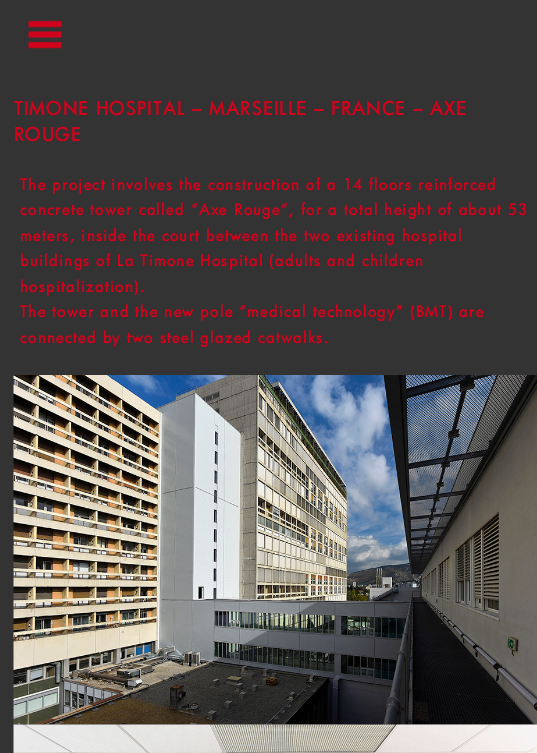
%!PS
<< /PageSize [537 753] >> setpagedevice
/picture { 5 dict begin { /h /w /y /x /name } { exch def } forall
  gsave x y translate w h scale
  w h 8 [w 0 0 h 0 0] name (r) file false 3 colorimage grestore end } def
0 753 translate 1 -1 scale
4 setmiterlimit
0.2 setgray
0 0 537 753 rectfill
(img1.rgb) 28 20 34 29 picture
/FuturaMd-Bold [18 0 0 -18 0 0] selectfont
0.82 0.008 0.11 setrgbcolor
14 115 moveto 1.5 0 (TIMONE HOSPITAL – MARSEILLE – FRANCE – AXE) ashow
14 141 moveto 1.5 0 (ROUGE) ashow
/FuturaMd-Bold [14.95 0 0 -14.95 0 0] selectfont
20 190 moveto 1.5 0 (The project involves the construction of a 14 floors reinforced) ashow
20 215 moveto 1.5 0 (concrete tower called “Axe Rouge”, for a total height of about 53) ashow
20 241 moveto 1.5 0 (meters, inside the court between the two existing hospital) ashow
20 266 moveto 1.5 0 (buildings of La Timone Hospital \(adults and children) ashow
20 292 moveto 1.5 0 (hospitalization\).) ashow
20 317 moveto 1.5 0 (The tower and the new pole “medical technology” \(BMT\) are) ashow
20 343 moveto 1.5 0 (connected by two steel glazed catwalks.) ashow
(img2.rgb) 13 375 524 350 picture
(img3.rgb) 13 724 524 29 picture
showpage
